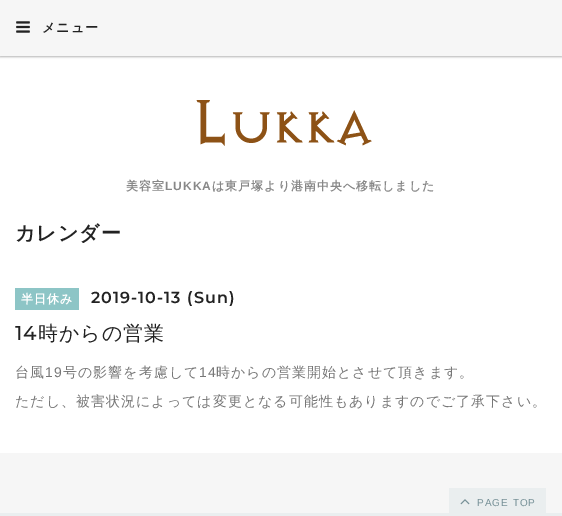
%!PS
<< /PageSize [562 516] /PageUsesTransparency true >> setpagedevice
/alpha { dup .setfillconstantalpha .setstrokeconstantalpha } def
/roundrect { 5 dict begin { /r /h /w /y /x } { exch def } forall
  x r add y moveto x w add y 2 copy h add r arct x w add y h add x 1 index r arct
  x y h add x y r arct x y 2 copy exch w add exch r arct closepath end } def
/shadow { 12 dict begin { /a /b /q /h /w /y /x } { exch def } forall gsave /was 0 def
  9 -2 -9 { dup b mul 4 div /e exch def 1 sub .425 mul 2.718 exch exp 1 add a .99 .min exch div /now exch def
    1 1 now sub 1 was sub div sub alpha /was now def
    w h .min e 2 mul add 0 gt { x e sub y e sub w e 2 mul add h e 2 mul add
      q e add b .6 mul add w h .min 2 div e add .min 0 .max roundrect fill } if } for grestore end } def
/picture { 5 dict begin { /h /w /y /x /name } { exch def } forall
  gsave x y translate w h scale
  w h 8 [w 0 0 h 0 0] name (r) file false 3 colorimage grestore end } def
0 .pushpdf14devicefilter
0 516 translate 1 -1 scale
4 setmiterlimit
1 setgray
0 0 562 516 rectfill
0 setgray
0 1 562 56 0 1 0.3 shadow
0.965 setgray
0 0 562 56 rectfill
(img1.rgb) 16 21 14 12 picture
/WenQuanYiZenHei-Bold [13 0 0 -13 0 0] selectfont
0.133 setgray
42 32 moveto 1 0 (メニュー) ashow
(img2.rgb) 196 100 176 46 picture
/WenQuanYiZenHei-Bold [12 0 0 -12 0 0] selectfont
0.533 setgray
126 190 moveto 1 0 (美容室) ashow
/LiberationSans-Bold [12 0 0 -12 0 0] selectfont
165 190 moveto 1 0 (LUKKA) ashow
/WenQuanYiZenHei-Bold [12 0 0 -12 0 0] selectfont
212 190 moveto 1 0 (は東戸塚より港南中央へ移転しました) ashow
/WenQuanYiZenHei-Bold [20 0 0 -20 0 0] selectfont
0.133 setgray
15 240 moveto 1 0 (カレンダー) ashow
0.553 0.773 0.776 setrgbcolor
15 288 64 22 rectfill
/WenQuanYiZenHei-Bold [12 0 0 -12 0 0] selectfont
1 setgray
21 303 moveto 1 0 (半日休み) ashow
/Montserrat-SemiBold [16 0 0 -16 0 0] selectfont
0.133 setgray
91 303 moveto 1 0 (2019-10-13 \(Sun\)) ashow
/Montserrat-Medium [20 0 0 -20 0 0] selectfont
15 340 moveto 1 0 (14) ashow
/WenQuanYiZenHei-Medium [20 0 0 -20 0 0] selectfont
38 340 moveto 1 0 (時からの営業) ashow
/WenQuanYiZenHei-Medium [14 0 0 -14 0 0] selectfont
0.467 setgray
15 377 moveto 1 0 (台風) ashow
/LiberationSans-Regular [14 0 0 -14 0 0] selectfont
45 377 moveto 1 0 (19) ashow
/WenQuanYiZenHei-Medium [14 0 0 -14 0 0] selectfont
63 377 moveto 1 0 (号の影響を考慮して) ashow
/LiberationSans-Regular [14 0 0 -14 0 0] selectfont
199 377 moveto 1 0 (14) ashow
/WenQuanYiZenHei-Medium [14 0 0 -14 0 0] selectfont
216 377 moveto 1 0 (時からの営業開始とさせて頂きます。) ashow
15 406 moveto 1 0 (ただし、被害状況によっては変更となる可能性もありますのでご了承下さい。) ashow
0.965 setgray
0 453 562 60 rectfill
0.918 0.933 0.937 setrgbcolor
0 513 562 3 rectfill
449 488 97 25 rectfill
(img3.rgb) 460 499 10 6 picture
/LiberationSans-Regular [10 0 0 -10 0 0] selectfont
0.463 0.565 0.592 setrgbcolor
477 506 moveto 1 0 (PAGE TOP) ashow
.poppdf14devicefilter showpage
